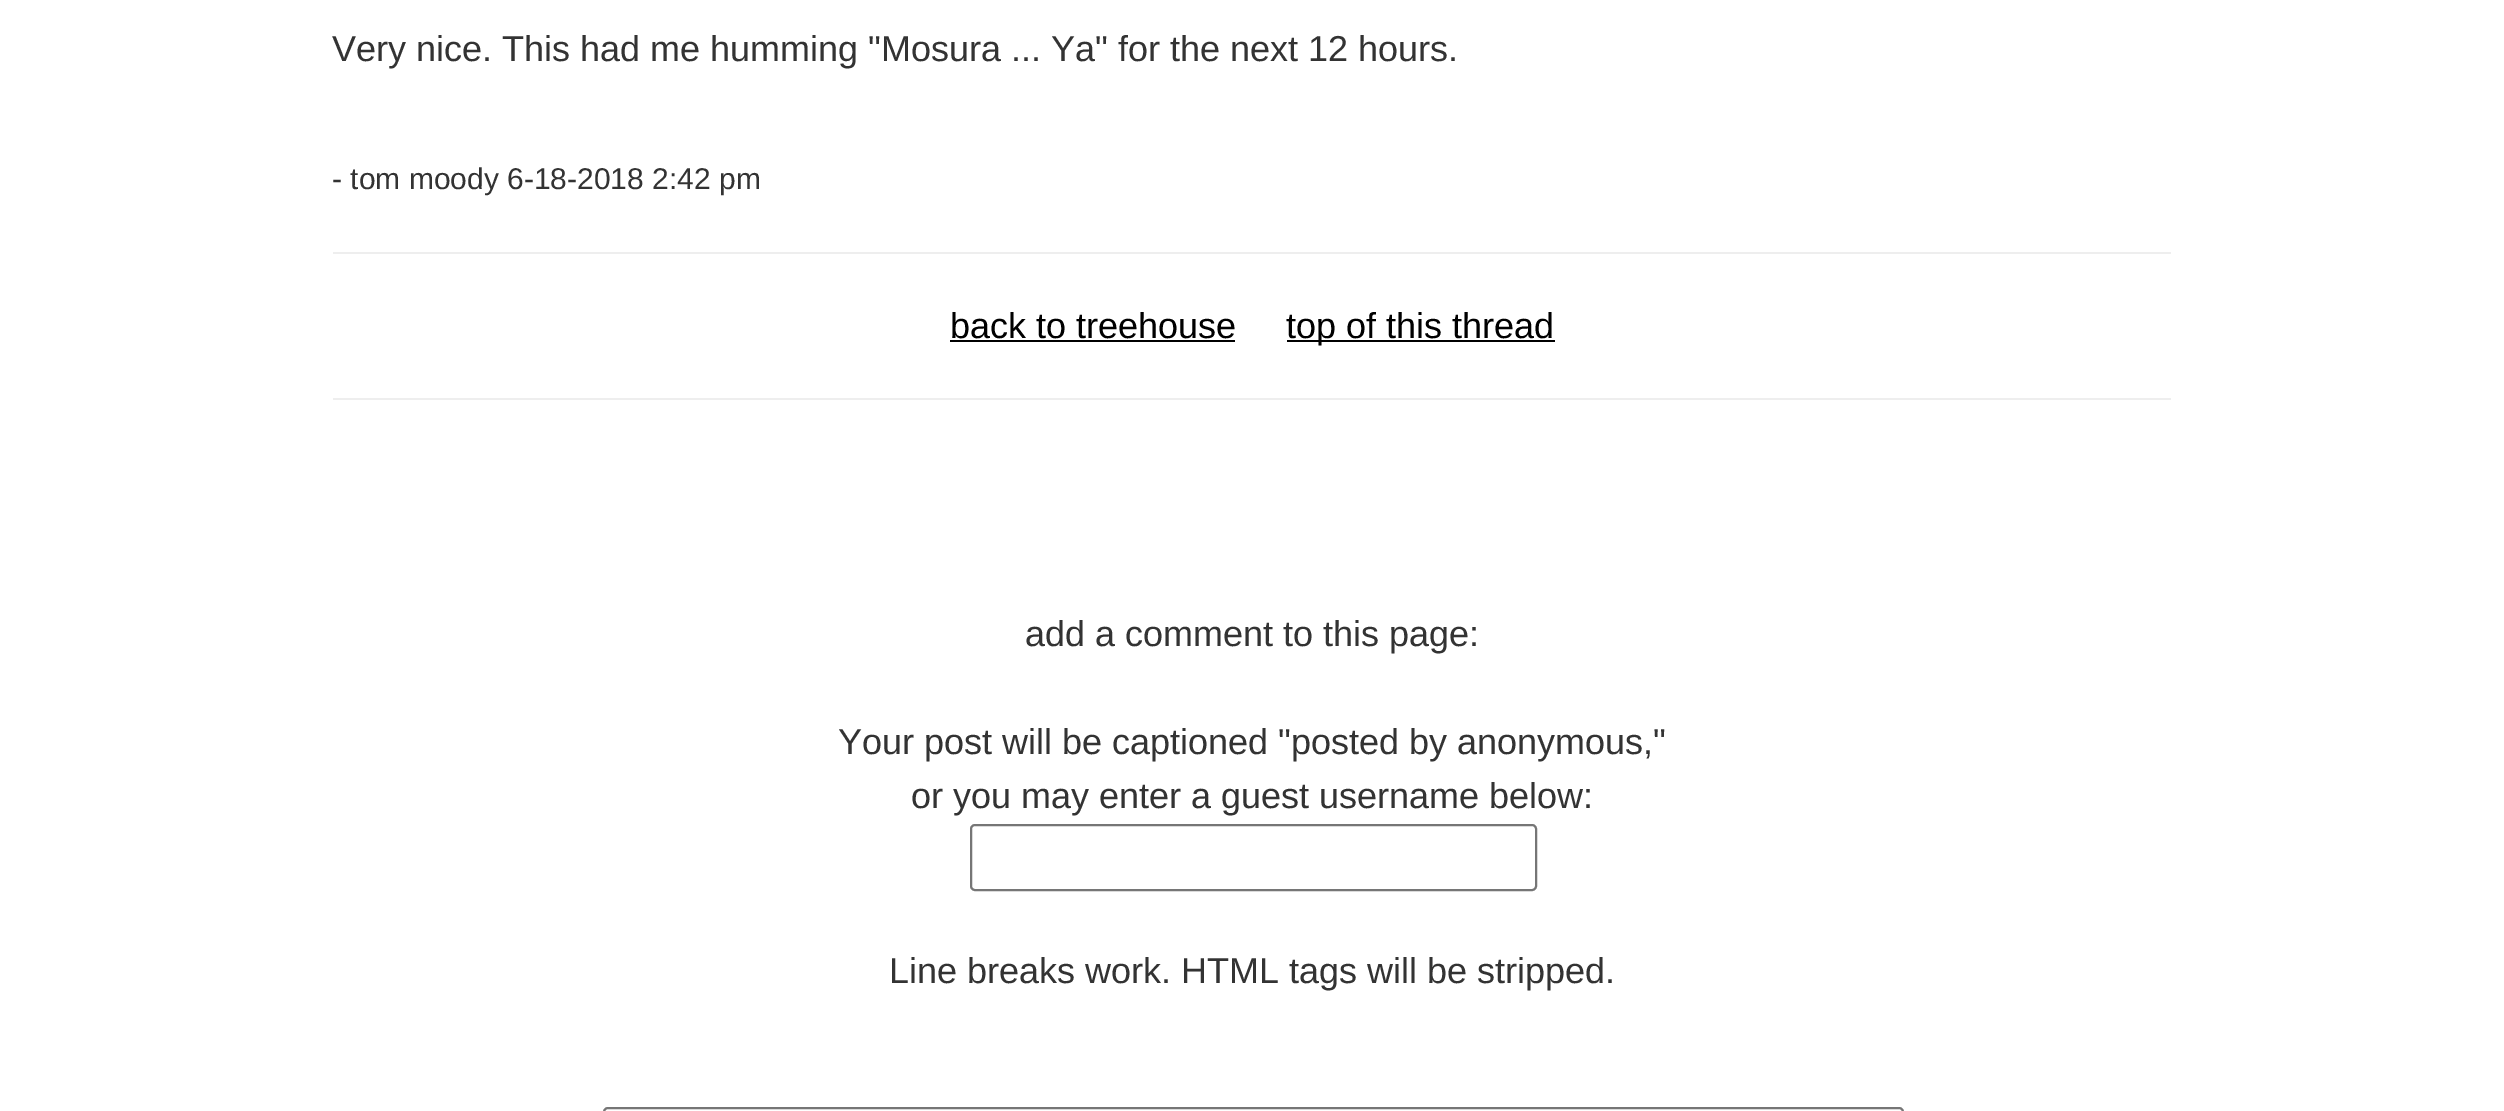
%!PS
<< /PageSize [2504 1111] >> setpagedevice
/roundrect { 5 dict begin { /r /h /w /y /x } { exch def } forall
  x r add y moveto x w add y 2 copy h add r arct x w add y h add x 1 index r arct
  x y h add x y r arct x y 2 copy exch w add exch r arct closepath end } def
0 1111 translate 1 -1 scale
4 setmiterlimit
1 setgray
0 0 2504 1111 rectfill
/LiberationSans-Regular [36 0 0 -36 0 0] selectfont
0.2 setgray
332 61 moveto (Very nice. This had me humming "Mosura ... Ya" for the next 12 hours.) show
/LiberationSans-Regular [30 0 0 -30 0 0] selectfont
332 189 moveto (- tom moody 6-18-2018 2:42 pm) show
0.933 setgray
333 252 1838 2 rectfill
/LiberationSans-Regular [36 0 0 -36 0 0] selectfont
0 setgray
950 338 moveto (back to treehouse) show
950 340 285 2 rectfill
1287 340 268 2 rectfill
1286 338 moveto (top of this thread) show
0.933 setgray
333 398 1838 2 rectfill
0.2 setgray
1025 646 moveto (add a comment to this page:) show
838 754 moveto (Your post will be captioned "posted by anonymous,") show
911 808 moveto (or you may enter a guest username below:) show
0.463 setgray
2 setlinewidth
971 825 565 65 4 roundrect stroke
0.2 setgray
889 983 moveto (Line breaks work. HTML tags will be stripped.) show
0.463 setgray
604 1108 1299 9 4 roundrect stroke
showpage
